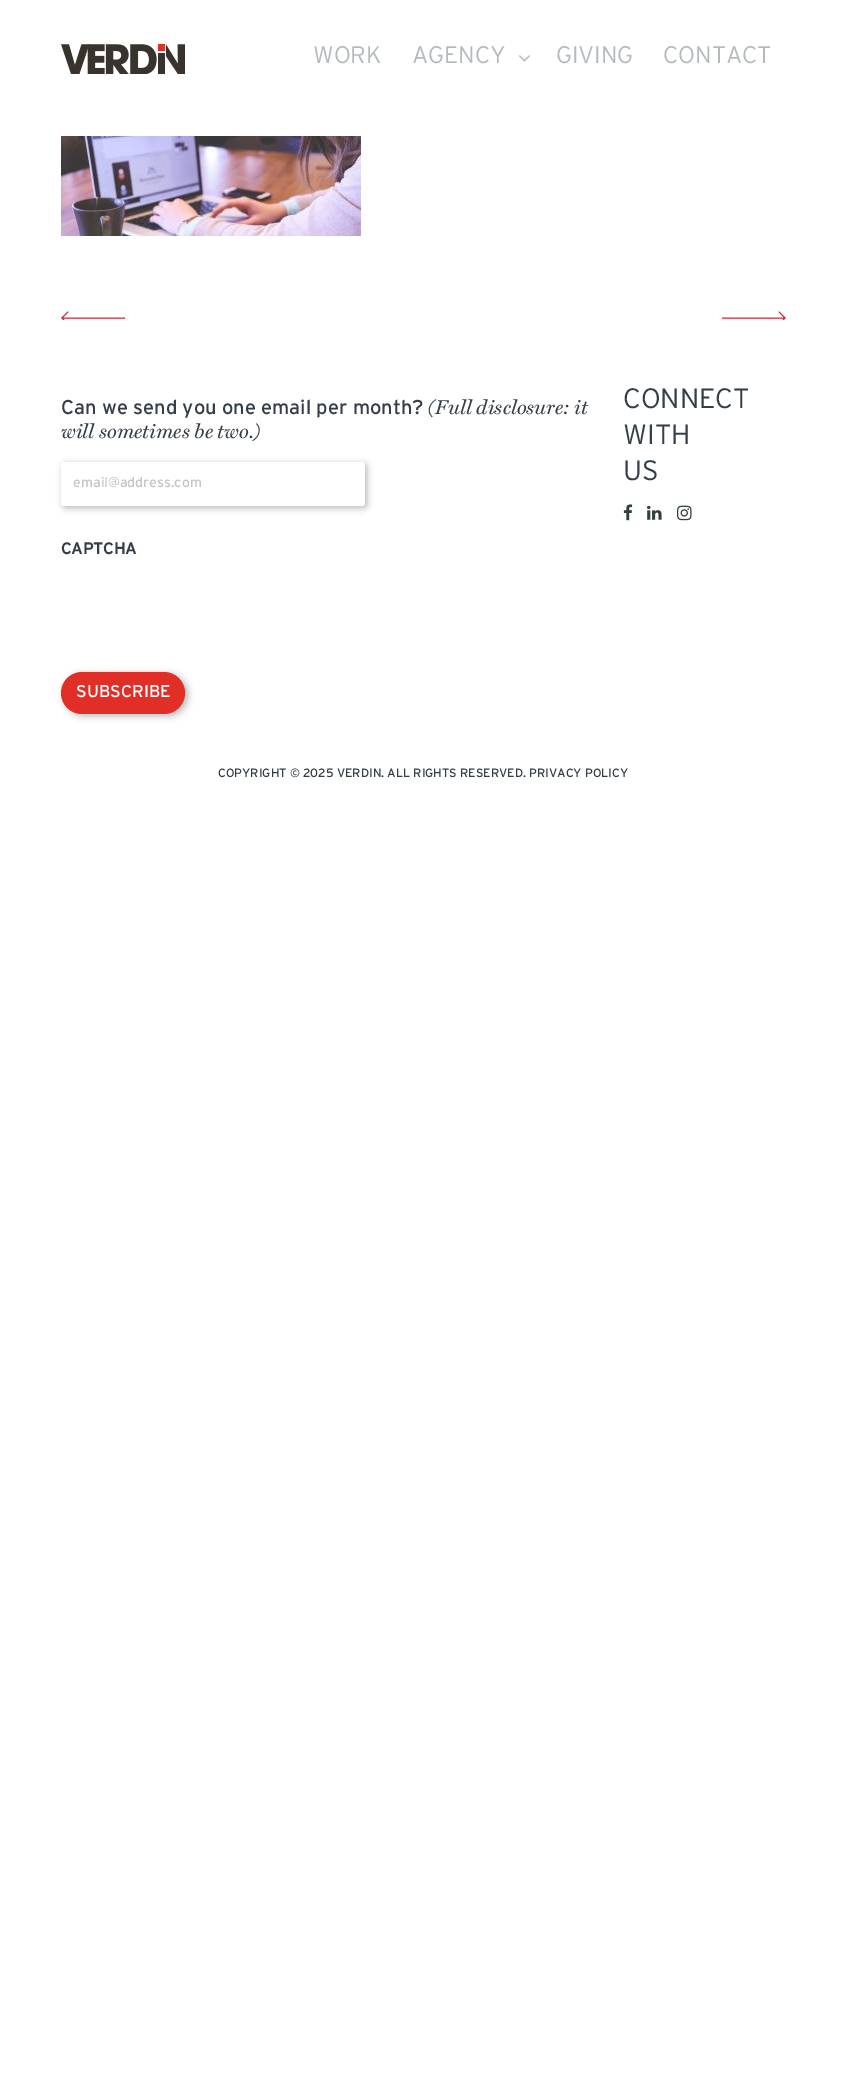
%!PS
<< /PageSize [847 2078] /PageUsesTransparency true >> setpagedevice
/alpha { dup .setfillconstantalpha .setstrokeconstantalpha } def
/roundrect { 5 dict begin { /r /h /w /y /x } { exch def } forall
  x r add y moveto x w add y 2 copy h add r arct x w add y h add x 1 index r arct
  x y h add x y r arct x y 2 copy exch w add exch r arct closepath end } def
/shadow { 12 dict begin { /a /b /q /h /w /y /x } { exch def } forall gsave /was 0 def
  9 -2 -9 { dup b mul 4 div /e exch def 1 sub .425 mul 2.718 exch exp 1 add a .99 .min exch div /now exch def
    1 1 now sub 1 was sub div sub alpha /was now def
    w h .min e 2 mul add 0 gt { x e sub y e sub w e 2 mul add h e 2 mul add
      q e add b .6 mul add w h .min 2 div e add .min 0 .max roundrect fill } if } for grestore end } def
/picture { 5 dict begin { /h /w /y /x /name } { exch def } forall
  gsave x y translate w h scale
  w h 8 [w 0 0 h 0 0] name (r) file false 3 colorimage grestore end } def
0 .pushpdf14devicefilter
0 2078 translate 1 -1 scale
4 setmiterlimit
1 setgray
0 0 847 2078 rectfill
(img1.rgb) 61 44 124 30 picture
/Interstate-Light [24 0 0 -24 0 0] selectfont
0.706 0.725 0.737 setrgbcolor
313 63 moveto (WORK) show
412 63 moveto (AGENCY) show
(img2.rgb) 519 55 11 7 picture
556 63 moveto (GIVING) show
663 63 moveto (CONTACT) show
(img3.rgb) 61 136 300 100 picture
(img4.rgb) 61 311 64 9 picture
(img5.rgb) 722 311 64 9 picture
/Interstate-Regular [20 0 0 -20 0 0] selectfont
0.2 0.243 0.282 setrgbcolor
61 414 moveto (Can we send you one email per month?) show
/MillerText-Italic [20 0 0 -20 0 0] selectfont
428 414 moveto (\(Full disclosure: it) show
61 438 moveto (will sometimes be two.\)) show
0 setgray
63 464 304 44 3 3.5 0.27 shadow
1 setgray
61 462 304 44 3 roundrect fill
/Interstate-Regular [14 0 0 -14 0 0] selectfont
0.765 0.773 0.784 setrgbcolor
73 487 moveto (email@address.com) show
/Interstate-Bold [16 0 0 -16 0 0] selectfont
0.2 0.243 0.282 setrgbcolor
61 554 moveto (CAPTCHA) show
0 setgray
64 674 124 42 21 3.5 0.27 shadow
0.882 0.18 0.149 setrgbcolor
61 672 124 42 21 roundrect fill
/Interstate-Regular [17 0 0 -17 0 0] selectfont
1 setgray
76 697 moveto (SUBSCRIBE) show
/Interstate-Light [28 0 0 -28 0 0] selectfont
0.2 0.243 0.282 setrgbcolor
623 408 moveto (CONNECT) show
623 444 moveto (WITH) show
623 480 moveto (US) show
(img6.rgb) 623 504 10 17 picture
(img7.rgb) 647 505 15 15 picture
(img8.rgb) 677 505 15 16 picture
/Interstate-Regular [12 0 0 -12 0 0] selectfont
218 777 moveto (COPYRIGHT © 2025 VERDIN. ALL RIGHTS RESERVED. PRIVACY POLICY) show
.poppdf14devicefilter showpage
